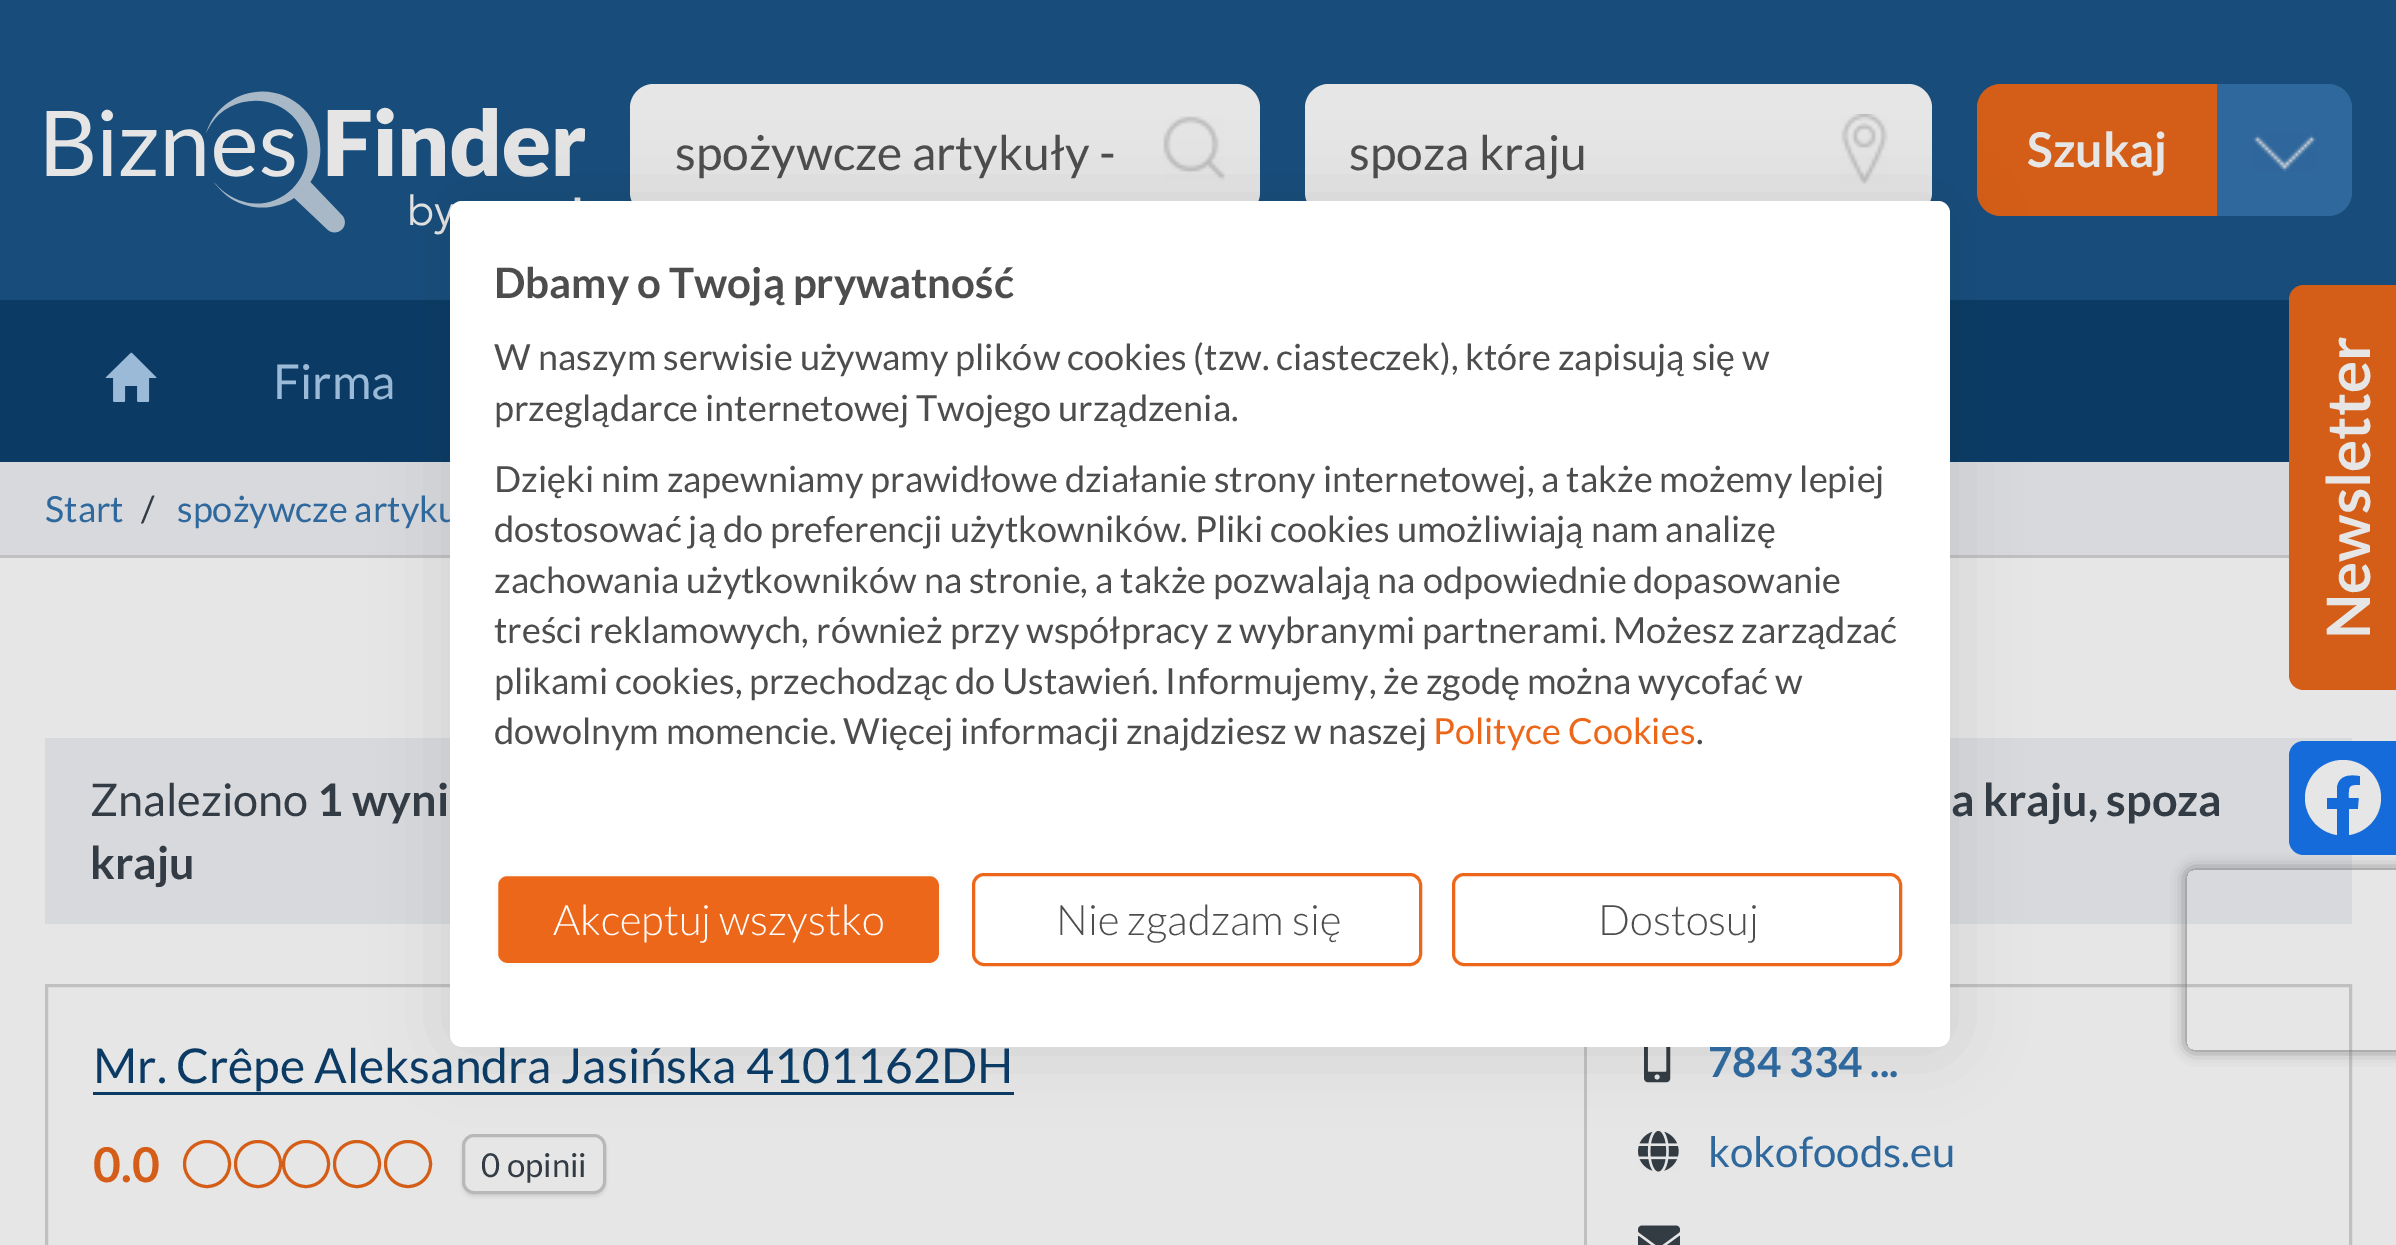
%!PS
<< /PageSize [2396 1245] /PageUsesTransparency true >> setpagedevice
/alpha { dup .setfillconstantalpha .setstrokeconstantalpha } def
/roundrect { 5 dict begin { /r /h /w /y /x } { exch def } forall
  x r add y moveto x w add y 2 copy h add r arct x w add y h add x 1 index r arct
  x y h add x y r arct x y 2 copy exch w add exch r arct closepath end } def
/shadow { 12 dict begin { /a /b /q /h /w /y /x } { exch def } forall gsave /was 0 def
  9 -2 -9 { dup b mul 4 div /e exch def 1 sub .425 mul 2.718 exch exp 1 add a .99 .min exch div /now exch def
    1 1 now sub 1 was sub div sub alpha /was now def
    w h .min e 2 mul add 0 gt { x e sub y e sub w e 2 mul add h e 2 mul add
      q e add b .6 mul add w h .min 2 div e add .min 0 .max roundrect fill } if } for grestore end } def
/picture { 5 dict begin { /h /w /y /x /name } { exch def } forall
  gsave x y translate w h scale
  w h 8 [w 0 0 h 0 0] name (r) file false 3 colorimage grestore end } def
0 .pushpdf14devicefilter
0 1245 translate 1 -1 scale
4 setmiterlimit
0.902 setgray
0 0 2396 1245 rectfill
0.094 0.302 0.482 setrgbcolor
0 0 2396 300 rectfill
(img1.rgb) 46 91 539 144 picture
0.902 setgray
630 84 630 132 24 roundrect fill
/Lato-Regular [48 0 0 -48 0 0] selectfont
0.302 setgray
675 170 moveto (spożywcze artykuły -) show
(img2.rgb) 1163 116 62 65 picture
0.902 setgray
1305 84 627 132 24 roundrect fill
0.302 setgray
1349 170 moveto (spoza kraju) show
(img3.rgb) 1841 114 47 70 picture
0.831 0.365 0.09 setrgbcolor
newpath 2001 84 moveto 2217 84 lineto 2217 216 lineto 2001 216 lineto 1987.5 216 1977 205.5 1977 192 curveto 1977 108 lineto 1977 94.5 1987.5 84 2001 84 curveto closepath fill
/Lato-Bold [48 0 0 -48 0 0] selectfont
0.902 setgray
2027 167 moveto (Szukaj) show
0.184 0.408 0.612 setrgbcolor
newpath 2217 84 moveto 2328 84 lineto 2341.5 84 2352 94.5 2352 108 curveto 2352 192 lineto 2352 205.5 2341.5 216 2328 216 curveto 2217 216 lineto closepath fill
(img4.rgb) 2252 134 65 38 picture
0.043 0.231 0.396 setrgbcolor
0 300 2289 162 rectfill
(img5.rgb) 105 352 52 50 picture
/Lato-Regular [48 0 0 -48 0 0] selectfont
0.604 0.729 0.847 setrgbcolor
273 399 moveto (Firma) show
0.847 0.851 0.863 setrgbcolor
0 462 2289 93 rectfill
0.753 setgray
0 555 2289 3 rectfill
0.847 0.851 0.863 setrgbcolor
45 738 2307 186 rectfill
0.753 setgray
3 setlinewidth
46.5 985.5 2304 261 rectstroke
0.043 0.231 0.396 setrgbcolor
93 1092 921 3 rectfill
0.831 0.365 0.09 setrgbcolor
newpath 357 1164 22.5 0 360 arc closepath stroke
newpath 408 1164 22.5 0 360 arc closepath stroke
0 setgray
462 1137 144 60 12 1.5 0.07 shadow
0.902 setgray
463.5 1135.5 141 57 10.5 roundrect gsave fill grestore
0.722 setgray
stroke
0.753 setgray
1584 1047 3 198 rectfill
(img6.rgb) 1644 1047 27 36 picture
(img7.rgb) 1638 1130 41 42 picture
0 setgray
450 201 1500 846 12 36 0.1 shadow
/Lato-Regular [36 0 0 -36 0 0] selectfont
0.184 0.408 0.612 setrgbcolor
177 522 moveto (spożywcze artyku) show
/Lato-Bold [42 0 0 -42 0 0] selectfont
1708 1077 moveto (784 334 ...) show
1 setgray
450 201 1500 846 12 roundrect fill
0.302 setgray
494 298 moveto (Dbamy o Twoją prywatność) show
/Lato-Regular [36 0 0 -36 0 0] selectfont
494 370 moveto (W naszym serwisie używamy plików cookies \(tzw. ciasteczek\), które zapisują się w) show
494 421 moveto (przeglądarce internetowej Twojego urządzenia.) show
494 492 moveto (Dzięki nim zapewniamy prawidłowe działanie strony internetowej, a także możemy lepiej) show
494 542 moveto (dostosować ją do preferencji użytkowników. Pliki cookies umożliwiają nam analizę) show
494 593 moveto (zachowania użytkowników na stronie, a także pozwalają na odpowiednie dopasowanie) show
494 643 moveto (treści reklamowych, również przy współpracy z wybranymi partnerami. Możesz zarządzać) show
494 694 moveto (plikami cookies, przechodząc do Ustawień. Informujemy, że zgodę można wycofać w) show
494 744 moveto (dowolnym momencie. Więcej informacji znajdziesz w naszej) show
0.925 0.404 0.098 setrgbcolor
1433 744 moveto (Polityce Cookies) show
0.302 setgray
1696 744 moveto (.) show
0.925 0.404 0.098 setrgbcolor
496.5 874.5 444 90 10.5 roundrect gsave fill grestore
0.98 0.984 0.984 setrgbcolor
stroke
/Lato-Light [42 0 0 -42 0 0] selectfont
1 setgray
553 935 moveto (Akceptuj wszystko) show
0.925 0.404 0.098 setrgbcolor
973.5 874.5 447 90 10.5 roundrect stroke
0.302 setgray
1056 935 moveto (Nie zgadzam się) show
0.925 0.404 0.098 setrgbcolor
1453.5 874.5 447 90 10.5 roundrect stroke
0.302 setgray
1598 935 moveto (Dostosuj) show
0.831 0.365 0.09 setrgbcolor
newpath 2304 285 moveto 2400 285 lineto 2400 690 lineto 2304 690 lineto 2295.5 690 2289 683.5 2289 675 curveto 2289 300 lineto 2289 291.5 2295.5 285 2304 285 curveto closepath fill
/Lato-Bold [60 0 0 -60 0 0] selectfont
0.902 setgray
gsave 2370 639 translate -90 rotate 0 0 moveto (Newsletter) show grestore
/Lato-Regular [36 0 0 -36 0 0] selectfont
0.184 0.408 0.612 setrgbcolor
45 522 moveto (Start) show
0.2 0.231 0.267 setrgbcolor
141 522 moveto (/) show
/Lato-Regular [45 0 0 -45 0 0] selectfont
90 816 moveto (Znaleziono) show
/Lato-Bold [45 0 0 -45 0 0] selectfont
317 816 moveto (1 wyni) show
1951 816 moveto (a kraju, spoza) show
90 879 moveto (kraju) show
/Lato-Regular [48 0 0 -48 0 0] selectfont
0.043 0.231 0.396 setrgbcolor
93 1083 moveto (Mr. Crêpe Aleksandra Jasińska 4101162DH) show
/Lato-Bold [48 0 0 -48 0 0] selectfont
0.831 0.365 0.09 setrgbcolor
93 1182 moveto (0.0) show
newpath 207 1164 22.5 0 360 arc closepath stroke
newpath 258 1164 22.5 0 360 arc closepath stroke
newpath 306 1164 22.5 0 360 arc closepath stroke
/Lato-Regular [33 0 0 -33 0 0] selectfont
0.2 0.231 0.267 setrgbcolor
481 1177 moveto (0 opinii) show
/Lato-Regular [42 0 0 -42 0 0] selectfont
0.184 0.408 0.612 setrgbcolor
1708 1167 moveto (kokofoods.eu) show
(img8.rgb) 1638 1225 42 20 picture
gsave
newpath 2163 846 moveto 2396 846 lineto 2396 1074 lineto 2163 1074 lineto closepath 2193 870 moveto 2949 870 lineto 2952.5 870 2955 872.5 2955 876 curveto 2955 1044 lineto 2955 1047.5 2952.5 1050 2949 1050 curveto 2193 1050 lineto 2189.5 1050 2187 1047.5 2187 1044 curveto 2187 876 lineto 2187 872.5 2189.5 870 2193 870 curveto closepath eoclip newpath
0.451 setgray
2187 870 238 180 6 7.5 1 shadow
grestore
0.086 0.42 0.855 setrgbcolor
newpath 2304 741 moveto 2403 741 lineto 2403 855 lineto 2304 855 lineto 2295.5 855 2289 848.5 2289 840 curveto 2289 756 lineto 2289 747.5 2295.5 741 2304 741 curveto closepath fill
0.902 setgray
newpath 2381 798 moveto 2381 777 2364 760 2343 760 curveto 2322 760 2305 777 2305 798 curveto 2305 817 2319 832 2337 835 curveto 2337 809 lineto 2327 809 lineto 2327 798 lineto 2337 798 lineto 2337 786 lineto 2339 775 2350 774 2360 776 curveto 2360 785 lineto 2348 785 2349 787 2349 798 curveto 2359 798 lineto 2358 809 lineto 2349 809 lineto 2349 835 lineto 2367 832 2381 817 2381 798 curveto closepath fill
.poppdf14devicefilter showpage
